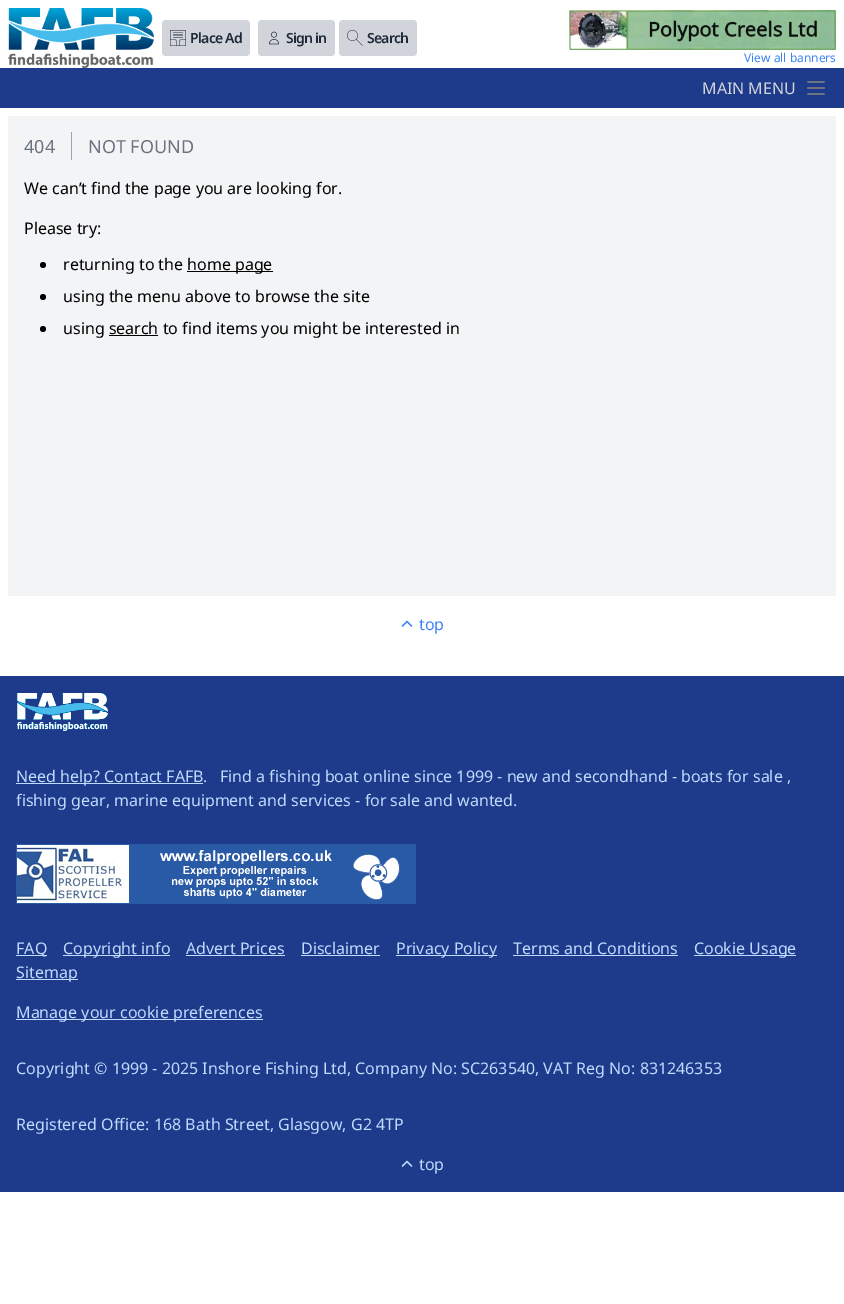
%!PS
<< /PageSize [844 1304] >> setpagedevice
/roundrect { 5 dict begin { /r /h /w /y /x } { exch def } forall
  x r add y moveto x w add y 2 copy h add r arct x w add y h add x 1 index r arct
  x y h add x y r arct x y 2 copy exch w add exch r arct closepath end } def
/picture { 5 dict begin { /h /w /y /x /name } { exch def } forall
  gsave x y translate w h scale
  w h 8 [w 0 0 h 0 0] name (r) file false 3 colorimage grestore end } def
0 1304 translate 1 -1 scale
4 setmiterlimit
1 setgray
0 0 844 1304 rectfill
(img1.rgb) 8 8 146 60 picture
0.82 0.835 0.859 setrgbcolor
162 20 88 36 4 roundrect fill
(img2.rgb) 170 30 16 16 picture
/NotoSans-SemiBold [14 0 0 -14 0 0] selectfont
0.122 0.161 0.216 setrgbcolor
190 43 moveto -0.75 0 (Place Ad) ashow
0.82 0.835 0.859 setrgbcolor
258 20 77 36 4 roundrect fill
(img3.rgb) 269 31 10 14 picture
0.122 0.161 0.216 setrgbcolor
286 43 moveto -0.75 0 (Sign in) ashow
0.82 0.835 0.859 setrgbcolor
339 20 78 36 4 roundrect fill
(img4.rgb) 347 30 16 16 picture
0.122 0.161 0.216 setrgbcolor
367 43 moveto -0.75 0 (Search) ashow
(img5.rgb) 569 10 267 40 picture
/NotoSans-Regular [12 0 0 -12 0 0] selectfont
0.231 0.51 0.965 setrgbcolor
744 62 moveto (View all banners) show
0.118 0.227 0.541 setrgbcolor
0 68 844 40 rectfill
/NotoSans-Regular [16 0 0 -16 0 0] selectfont
0.82 0.835 0.859 setrgbcolor
702 94 moveto (MAIN MENU) show
(img6.rgb) 807 81 18 14 picture
0.953 0.957 0.965 setrgbcolor
8 116 828 480 rectfill
0.612 0.639 0.686 setrgbcolor
71 132 1 28 rectfill
/NotoSans-Regular [18 0 0 -18 0 0] selectfont
0.42 0.447 0.502 setrgbcolor
24 153 moveto (404) show
88 153 moveto (NOT FOUND) show
/NotoSans-Regular [16 0 0 -16 0 0] selectfont
0 setgray
24 194 moveto (We can’t find the page you are looking for.) show
24 234 moveto (Please try:) show
newpath 43 265 3 0 360 arc closepath fill
63 270 moveto (returning to the) show
187 271 86 1 rectfill
187 270 moveto (home page) show
newpath 43 297 3 0 360 arc closepath fill
63 302 moveto (using the menu above to browse the site) show
newpath 43 329 3 0 360 arc closepath fill
63 334 moveto (using search to find items you might be interested in) show
109 335 49 1 rectfill
0.231 0.51 0.965 setrgbcolor
1.3 setlinewidth
1 setlinecap
1 setlinejoin
newpath 402.5 626 moveto 407 621.5 lineto 411.5 626 lineto stroke
419 630 moveto (top) show
0.118 0.227 0.541 setrgbcolor
0 676 844 516 rectfill
(img7.rgb) 17 693 91 38 picture
0.749 0.859 0.996 setrgbcolor
16 783 187 1 rectfill
16 782 moveto (Need help? Contact FAFB.) show
220 782 moveto (Find a fishing boat online since 1999 - new and secondhand - boats for sale ,) show
16 806 moveto (fishing gear, marine equipment and services - for sale and wanted.) show
(img8.rgb) 16 844 400 60 picture
16 955 31 1 rectfill
16 954 moveto (FAQ) show
63 955 107 1 rectfill
63 954 moveto (Copyright info) show
186 954 moveto (Advert Prices) show
186 955 99 1 rectfill
301 954 moveto (Disclaimer) show
301 955 79 1 rectfill
396 955 101 1 rectfill
396 954 moveto (Privacy Policy) show
513 954 moveto (Terms and Conditions) show
513 955 165 1 rectfill
694 955 102 1 rectfill
694 954 moveto (Cookie Usage) show
16 979 62 1 rectfill
16 978 moveto (Sitemap) show
16 1019 247 1 rectfill
16 1018 moveto (Manage your cookie preferences) show
16 1074 moveto (Copyright © 1999 - 2025 Inshore Fishing Ltd, Company No: SC263540, VAT Reg No: 831246353) show
16 1130 moveto (Registered Office: 168 Bath Street, Glasgow, G2 4TP) show
newpath 402.5 1166 moveto 407 1161.5 lineto 411.5 1166 lineto stroke
419 1170 moveto (top) show
showpage
